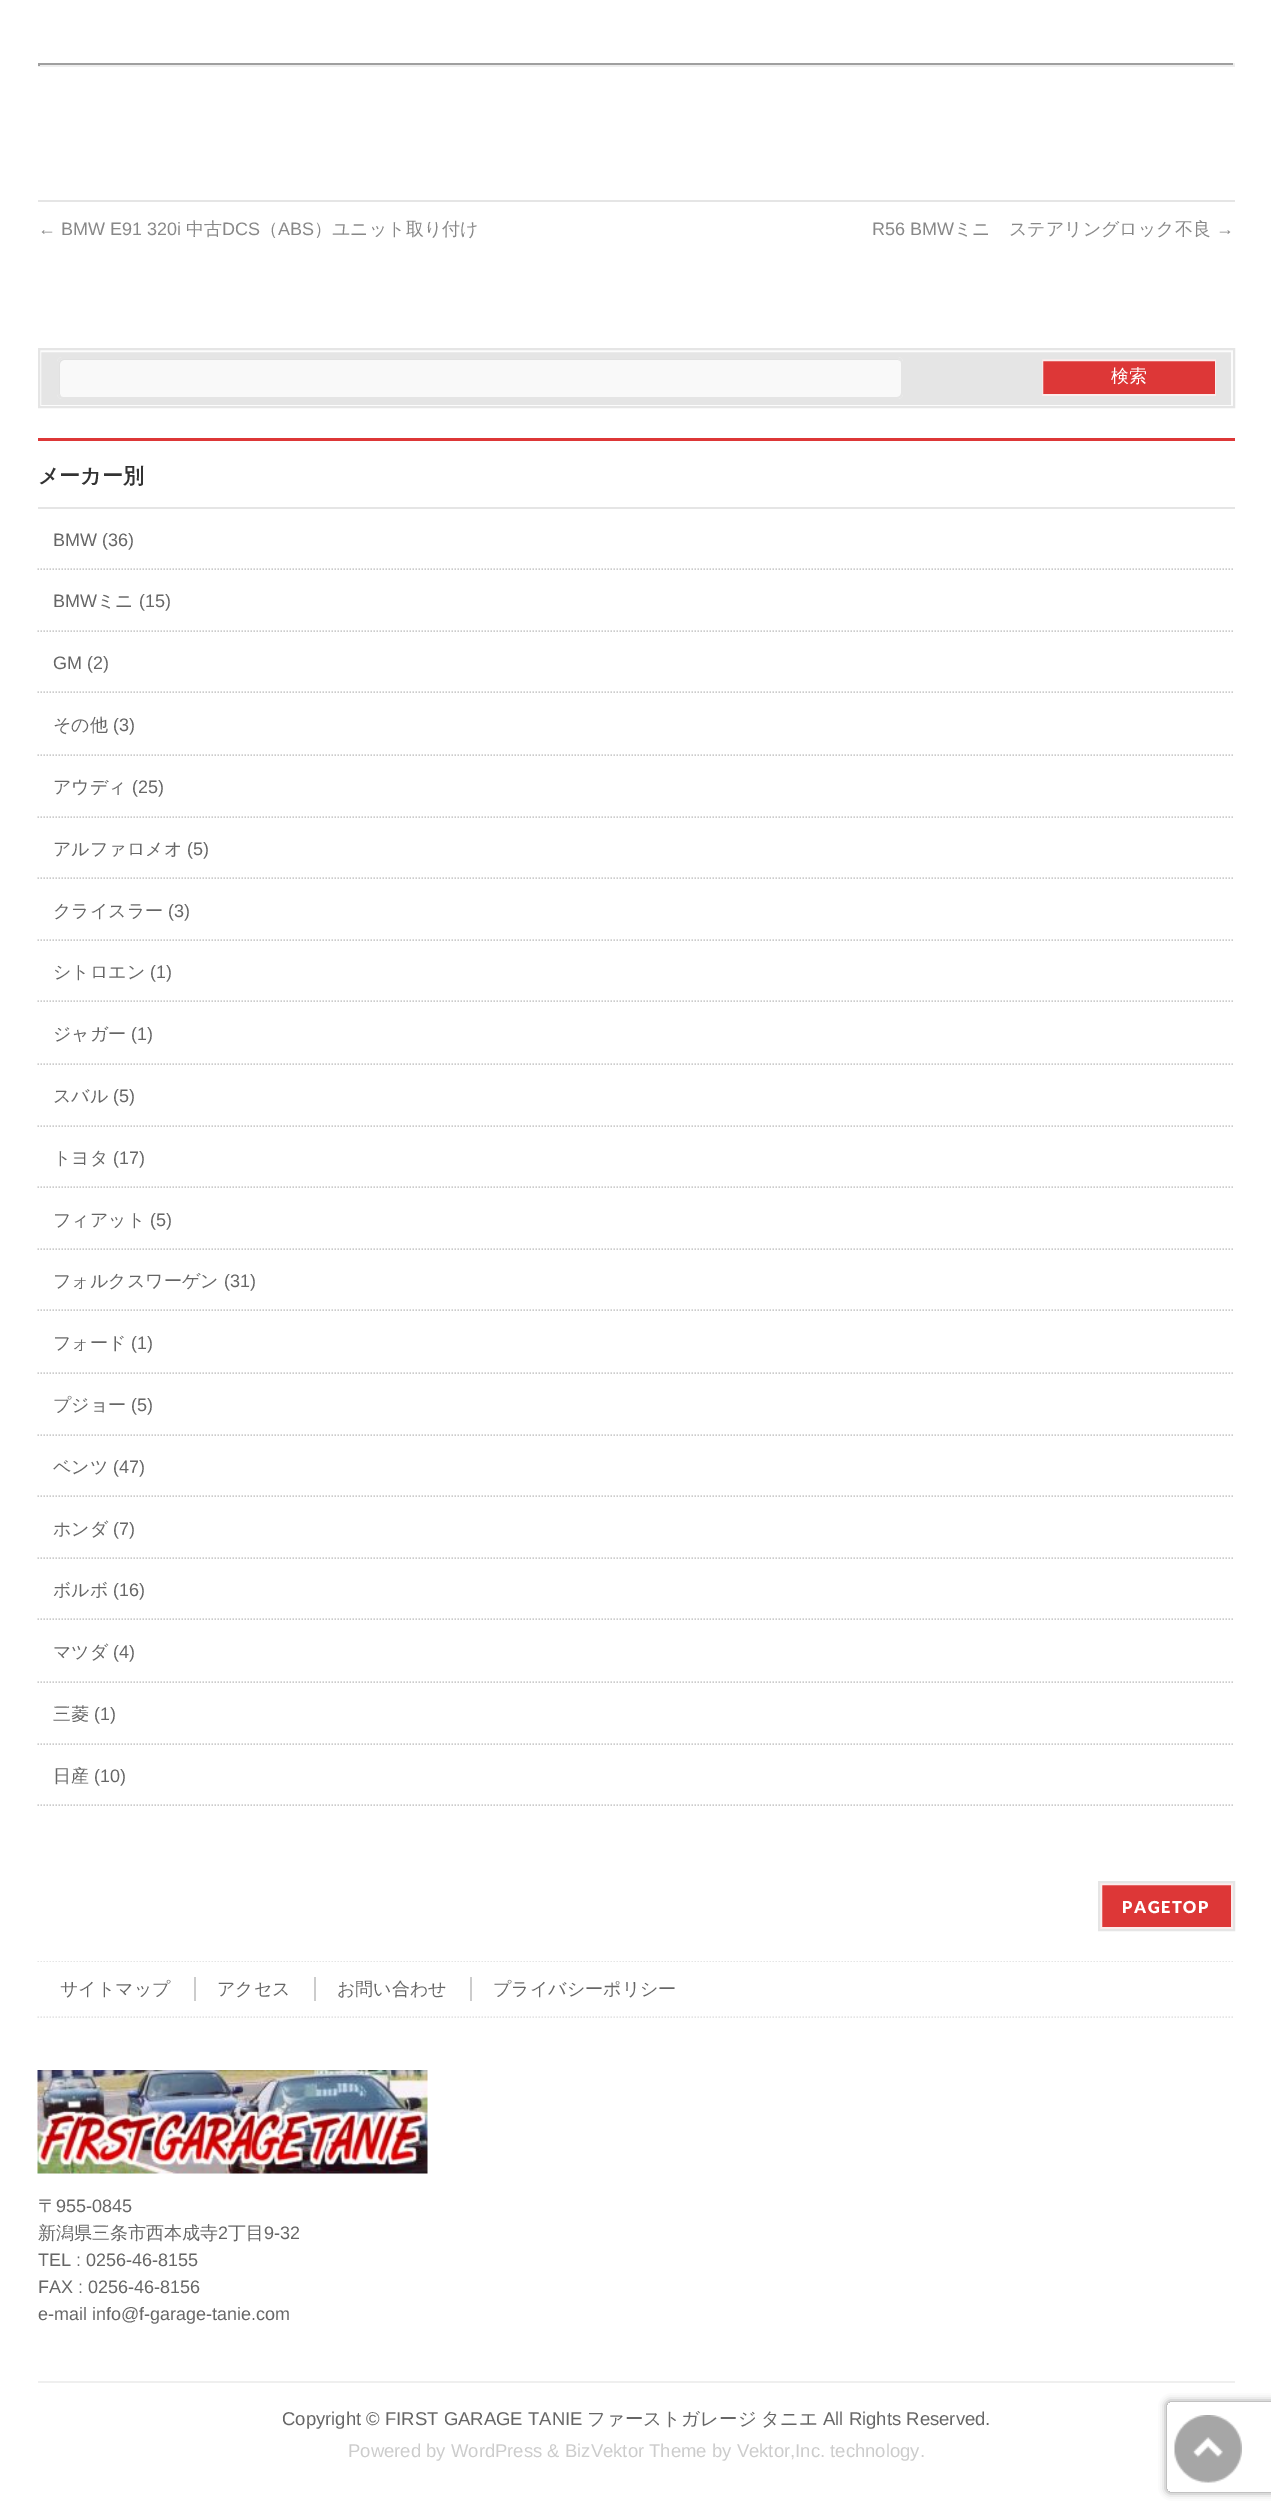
%!PS
<< /PageSize [1271 2512] /PageUsesTransparency true >> setpagedevice
/alpha { dup .setfillconstantalpha .setstrokeconstantalpha } def
/roundrect { 5 dict begin { /r /h /w /y /x } { exch def } forall
  x r add y moveto x w add y 2 copy h add r arct x w add y h add x 1 index r arct
  x y h add x y r arct x y 2 copy exch w add exch r arct closepath end } def
/shadow { 12 dict begin { /a /b /q /h /w /y /x } { exch def } forall gsave /was 0 def
  9 -2 -9 { dup b mul 4 div /e exch def 1 sub .425 mul 2.718 exch exp 1 add a .99 .min exch div /now exch def
    1 1 now sub 1 was sub div sub alpha /was now def
    w h .min e 2 mul add 0 gt { x e sub y e sub w e 2 mul add h e 2 mul add
      q e add b .6 mul add w h .min 2 div e add .min 0 .max roundrect fill } if } for grestore end } def
/picture { 5 dict begin { /h /w /y /x /name } { exch def } forall
  gsave x y translate w h scale
  w h 8 [w 0 0 h 0 0] name (r) file false 3 colorimage grestore end } def
0 .pushpdf14devicefilter
0 2512 translate 1 -1 scale
4 setmiterlimit
1 setgray
0 0 1271 2512 rectfill
0.624 setgray
38 63 1197 2 rectfill
0.933 setgray
1233 63 2 3 rectfill
38 65 1197 2 rectfill
0.624 setgray
38 63 2 3 rectfill
0.898 setgray
38 200 1197 2 rectfill
/LiberationSans-Regular [18 0 0 -18 0 0] selectfont
0.533 setgray
38 235 moveto (← BMW E91 320i) show
/WenQuanYiZenHei-Medium [18 0 0 -18 0 0] selectfont
186 235 moveto (中古) show
/LiberationSans-Regular [18 0 0 -18 0 0] selectfont
222 235 moveto (DCS) show
/WenQuanYiZenHei-Medium [18 0 0 -18 0 0] selectfont
260 235 moveto (（) show
/LiberationSans-Regular [18 0 0 -18 0 0] selectfont
278 235 moveto (ABS) show
/WenQuanYiZenHei-Medium [18 0 0 -18 0 0] selectfont
314 235 moveto (）ユニット取り付け) show
/LiberationSans-Regular [18 0 0 -18 0 0] selectfont
872 235 moveto (R56 BMW) show
/WenQuanYiZenHei-Medium [18 0 0 -18 0 0] selectfont
954 235 moveto (ミニ　ステアリングロック不良) show
/LiberationSans-Regular [18 0 0 -18 0 0] selectfont
1216 235 moveto (→) show
0.898 setgray
newpath 40 351 moveto 1232 351 lineto 1232 406 lineto 40 406 lineto closepath gsave fill grestore
0.988 setgray
2 setlinewidth
stroke
0.898 setgray
39 349 1195 58 rectstroke
0.976 setgray
57 357 846 42 6 roundrect fill
0.878 setgray
newpath 64 360 moveto 898 360 lineto 901 361 lineto 900 360 898 359 897 359 curveto 64 359 lineto 61 359 59 361 59 364 curveto 59 393 lineto 59 394 60 396 61 397 curveto 60 394 lineto 60 364 lineto 60 362 62 360 64 360 curveto closepath fill
0.898 setgray
58 358 844 40 5 roundrect stroke
0.867 0.216 0.216 setrgbcolor
newpath 1042 360 moveto 1216 360 lineto 1216 395 lineto 1042 395 lineto closepath gsave fill grestore
0.988 0.922 0.922 setrgbcolor
stroke
0.898 setgray
1041 358 176 39 rectstroke
/WenQuanYiZenHei-Medium [18 0 0 -18 0 0] selectfont
1 setgray
1111 382 moveto (検索) show
0.867 0.216 0.216 setrgbcolor
38 438 1197 3 rectfill
0.898 setgray
38 507 1197 2 rectfill
/WenQuanYiZenHei-Bold [21 0 0 -21 0 0] selectfont
0.2 setgray
38 483 moveto (メーカー別) show
0.8 setgray
1.5 setlinewidth
[1.5 1.5] 0 setdash
newpath 37.5 569 moveto 1234.5 569 lineto stroke
/LiberationSans-Regular [18 0 0 -18 0 0] selectfont
0.4 setgray
53 546 moveto (BMW \(36\)) show
0.8 setgray
newpath 37.5 631 moveto 1234.5 631 lineto stroke
0.4 setgray
53 607 moveto (BMW) show
/WenQuanYiZenHei-Medium [18 0 0 -18 0 0] selectfont
97 607 moveto (ミニ) show
/LiberationSans-Regular [18 0 0 -18 0 0] selectfont
139 607 moveto (\(15\)) show
0.8 setgray
newpath 37.5 692 moveto 1234.5 692 lineto stroke
0.4 setgray
53 669 moveto (GM \(2\)) show
0.8 setgray
newpath 37.5 755 moveto 1234.5 755 lineto stroke
/WenQuanYiZenHei-Medium [18 0 0 -18 0 0] selectfont
0.4 setgray
53 731 moveto (その他) show
/LiberationSans-Regular [18 0 0 -18 0 0] selectfont
113 731 moveto (\(3\)) show
0.8 setgray
newpath 37.5 817 moveto 1234.5 817 lineto stroke
/WenQuanYiZenHei-Medium [18 0 0 -18 0 0] selectfont
0.4 setgray
53 793 moveto (アウディ) show
/LiberationSans-Regular [18 0 0 -18 0 0] selectfont
132 793 moveto (\(25\)) show
0.8 setgray
newpath 37.5 878 moveto 1234.5 878 lineto stroke
/WenQuanYiZenHei-Medium [18 0 0 -18 0 0] selectfont
0.4 setgray
53 855 moveto (アルファロメオ) show
/LiberationSans-Regular [18 0 0 -18 0 0] selectfont
187 855 moveto (\(5\)) show
0.8 setgray
newpath 37.5 940 moveto 1234.5 940 lineto stroke
/WenQuanYiZenHei-Medium [18 0 0 -18 0 0] selectfont
0.4 setgray
53 917 moveto (クライスラー) show
/LiberationSans-Regular [18 0 0 -18 0 0] selectfont
168 917 moveto (\(3\)) show
0.8 setgray
newpath 37.5 1001 moveto 1234.5 1001 lineto stroke
/WenQuanYiZenHei-Medium [18 0 0 -18 0 0] selectfont
0.4 setgray
53 978 moveto (シトロエン) show
/LiberationSans-Regular [18 0 0 -18 0 0] selectfont
150 978 moveto (\(1\)) show
0.8 setgray
newpath 37.5 1064 moveto 1234.5 1064 lineto stroke
/WenQuanYiZenHei-Medium [18 0 0 -18 0 0] selectfont
0.4 setgray
53 1040 moveto (ジャガー) show
/LiberationSans-Regular [18 0 0 -18 0 0] selectfont
131 1040 moveto (\(1\)) show
0.8 setgray
newpath 37.5 1126 moveto 1234.5 1126 lineto stroke
/WenQuanYiZenHei-Medium [18 0 0 -18 0 0] selectfont
0.4 setgray
53 1102 moveto (スバル) show
/LiberationSans-Regular [18 0 0 -18 0 0] selectfont
113 1102 moveto (\(5\)) show
0.8 setgray
newpath 37.5 1187 moveto 1234.5 1187 lineto stroke
/WenQuanYiZenHei-Medium [18 0 0 -18 0 0] selectfont
0.4 setgray
53 1164 moveto (トヨタ) show
/LiberationSans-Regular [18 0 0 -18 0 0] selectfont
113 1164 moveto (\(17\)) show
0.8 setgray
newpath 37.5 1249 moveto 1234.5 1249 lineto stroke
/WenQuanYiZenHei-Medium [18 0 0 -18 0 0] selectfont
0.4 setgray
53 1226 moveto (フィアット) show
/LiberationSans-Regular [18 0 0 -18 0 0] selectfont
150 1226 moveto (\(5\)) show
0.8 setgray
newpath 37.5 1310 moveto 1234.5 1310 lineto stroke
/WenQuanYiZenHei-Medium [18 0 0 -18 0 0] selectfont
0.4 setgray
53 1287 moveto (フォルクスワーゲン) show
/LiberationSans-Regular [18 0 0 -18 0 0] selectfont
224 1287 moveto (\(31\)) show
0.8 setgray
newpath 37.5 1373 moveto 1234.5 1373 lineto stroke
/WenQuanYiZenHei-Medium [18 0 0 -18 0 0] selectfont
0.4 setgray
53 1349 moveto (フォード) show
/LiberationSans-Regular [18 0 0 -18 0 0] selectfont
131 1349 moveto (\(1\)) show
0.8 setgray
newpath 37.5 1435 moveto 1234.5 1435 lineto stroke
/WenQuanYiZenHei-Medium [18 0 0 -18 0 0] selectfont
0.4 setgray
53 1411 moveto (プジョー) show
/LiberationSans-Regular [18 0 0 -18 0 0] selectfont
131 1411 moveto (\(5\)) show
0.8 setgray
newpath 37.5 1496 moveto 1234.5 1496 lineto stroke
/WenQuanYiZenHei-Medium [18 0 0 -18 0 0] selectfont
0.4 setgray
53 1473 moveto (ベンツ) show
/LiberationSans-Regular [18 0 0 -18 0 0] selectfont
113 1473 moveto (\(47\)) show
0.8 setgray
newpath 37.5 1558 moveto 1234.5 1558 lineto stroke
/WenQuanYiZenHei-Medium [18 0 0 -18 0 0] selectfont
0.4 setgray
53 1535 moveto (ホンダ) show
/LiberationSans-Regular [18 0 0 -18 0 0] selectfont
113 1535 moveto (\(7\)) show
0.8 setgray
newpath 37.5 1619 moveto 1234.5 1619 lineto stroke
/WenQuanYiZenHei-Medium [18 0 0 -18 0 0] selectfont
0.4 setgray
53 1596 moveto (ボルボ) show
/LiberationSans-Regular [18 0 0 -18 0 0] selectfont
113 1596 moveto (\(16\)) show
0.8 setgray
newpath 37.5 1682 moveto 1234.5 1682 lineto stroke
/WenQuanYiZenHei-Medium [18 0 0 -18 0 0] selectfont
0.4 setgray
53 1658 moveto (マツダ) show
/LiberationSans-Regular [18 0 0 -18 0 0] selectfont
113 1658 moveto (\(4\)) show
0.8 setgray
newpath 37.5 1744 moveto 1234.5 1744 lineto stroke
/WenQuanYiZenHei-Medium [18 0 0 -18 0 0] selectfont
0.4 setgray
53 1720 moveto (三菱) show
/LiberationSans-Regular [18 0 0 -18 0 0] selectfont
94 1720 moveto (\(1\)) show
0.8 setgray
newpath 37.5 1805 moveto 1234.5 1805 lineto stroke
/WenQuanYiZenHei-Medium [18 0 0 -18 0 0] selectfont
0.4 setgray
53 1782 moveto (日産) show
/LiberationSans-Regular [18 0 0 -18 0 0] selectfont
94 1782 moveto (\(10\)) show
0.867 0.216 0.216 setrgbcolor
newpath 1101 1884 moveto 1232 1884 lineto 1232 1928 lineto 1101 1928 lineto closepath gsave fill grestore
0.988 0.922 0.922 setrgbcolor
2 setlinewidth
[] 0 setdash
stroke
0.898 setgray
1099 1882 135 48 rectstroke
/Lato-Black [16.5 0 0 -16.5 0 0] selectfont
1 setgray
1122 1913 moveto 1.5 0 (PAGETOP) ashow
gsave
0 1961 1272 72 rectclip
0.898 setgray
1.5 setlinewidth
[1.5 1.5] 0 setdash
newpath 37.5 1961 moveto 1233 1961 lineto stroke
grestore
0.898 setgray
1.5 setlinewidth
[1.5 1.5] 0 setdash
newpath 37.5 2017 moveto 1233 2017 lineto stroke
0.8 setgray
194 1977 2 24 rectfill
/WenQuanYiZenHei-Medium [18 0 0 -18 0 0] selectfont
0.4 setgray
60 1995 moveto (サイトマップ) show
0.8 setgray
314 1977 2 24 rectfill
0.4 setgray
217 1995 moveto (アクセス) show
0.8 setgray
470 1977 2 24 rectfill
0.4 setgray
337 1995 moveto (お問い合わせ) show
493 1995 moveto (プライバシーポリシー) show
(img1.rgb) 37 2070 391 104 picture
38 2212 moveto (〒) show
/LiberationSans-Regular [18 0 0 -18 0 0] selectfont
56 2212 moveto (955-0845) show
/WenQuanYiZenHei-Medium [18 0 0 -18 0 0] selectfont
38 2239 moveto (新潟県三条市西本成寺) show
/LiberationSans-Regular [18 0 0 -18 0 0] selectfont
218 2239 moveto (2) show
/WenQuanYiZenHei-Medium [18 0 0 -18 0 0] selectfont
228 2239 moveto (丁目) show
/LiberationSans-Regular [18 0 0 -18 0 0] selectfont
264 2239 moveto (9-32) show
38 2266 moveto (TEL : 0256-46-8155) show
38 2293 moveto (FAX : 0256-46-8156) show
38 2320 moveto (e-mail info@f-garage-tanie.com) show
0.937 setgray
38 2381 1197 2 rectfill
/LiberationSans-Regular [18.5 0 0 -18.5 0 0] selectfont
0.4 setgray
282 2425 moveto (Copyright © FIRST GARAGE TANIE) show
/WenQuanYiZenHei-Medium [18.5 0 0 -18.5 0 0] selectfont
587 2425 moveto (ファーストガレージ) show
761 2425 moveto (タニエ) show
/LiberationSans-Regular [18.5 0 0 -18.5 0 0] selectfont
823 2425 moveto (All Rights Reserved.) show
0.8 setgray
348 2457 moveto (Powered by WordPress & BizVektor Theme by Vektor,Inc. technology.) show
gsave
newpath 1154 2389 moveto 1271 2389 lineto 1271 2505 lineto 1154 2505 lineto closepath 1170 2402 moveto 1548 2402 lineto 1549.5 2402 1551 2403.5 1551 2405 curveto 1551 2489 lineto 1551 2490.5 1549.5 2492 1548 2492 curveto 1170 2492 lineto 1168.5 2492 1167 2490.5 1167 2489 curveto 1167 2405 lineto 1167 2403.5 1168.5 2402 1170 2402 curveto closepath eoclip newpath
0.502 setgray
1167 2402 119 90 3 4 1 shadow
grestore
(img2.rgb) 1174 2415 68 68 picture
.poppdf14devicefilter showpage
